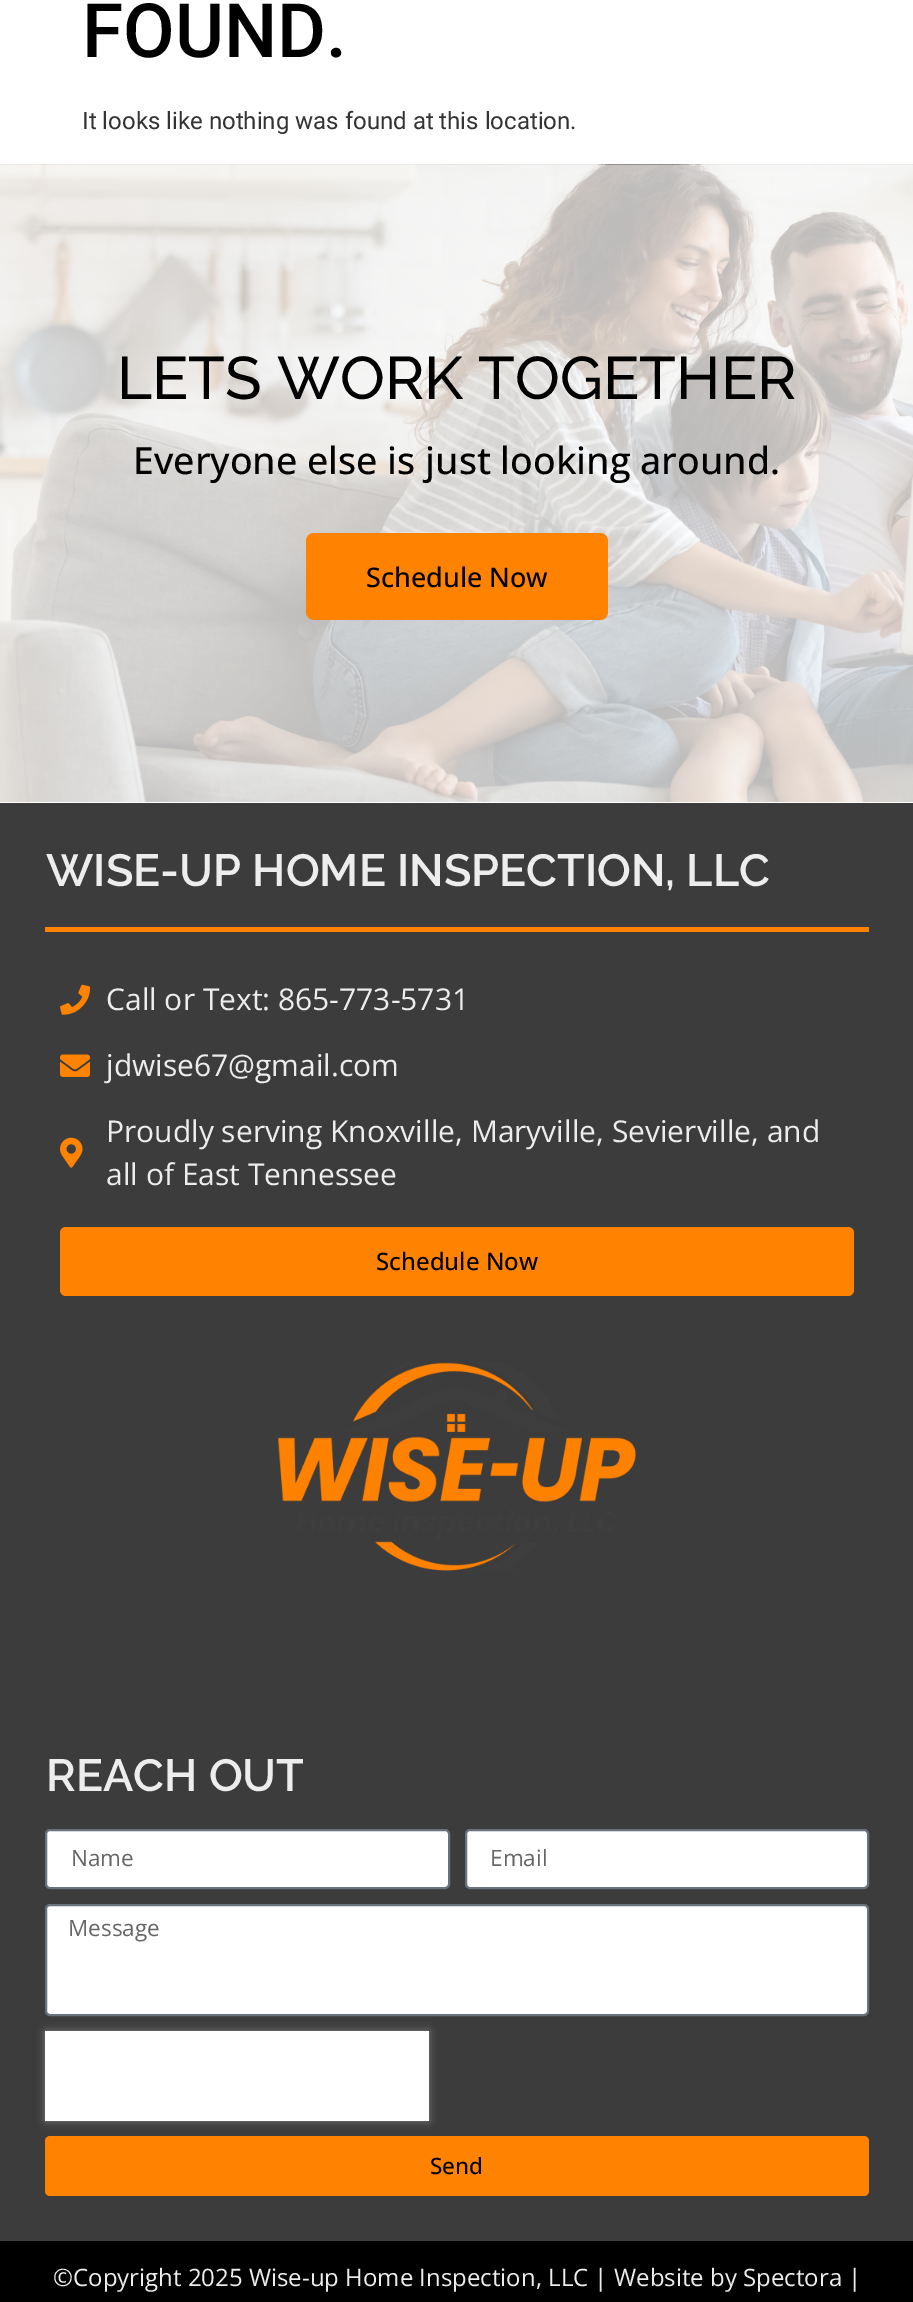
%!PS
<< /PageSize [913 2302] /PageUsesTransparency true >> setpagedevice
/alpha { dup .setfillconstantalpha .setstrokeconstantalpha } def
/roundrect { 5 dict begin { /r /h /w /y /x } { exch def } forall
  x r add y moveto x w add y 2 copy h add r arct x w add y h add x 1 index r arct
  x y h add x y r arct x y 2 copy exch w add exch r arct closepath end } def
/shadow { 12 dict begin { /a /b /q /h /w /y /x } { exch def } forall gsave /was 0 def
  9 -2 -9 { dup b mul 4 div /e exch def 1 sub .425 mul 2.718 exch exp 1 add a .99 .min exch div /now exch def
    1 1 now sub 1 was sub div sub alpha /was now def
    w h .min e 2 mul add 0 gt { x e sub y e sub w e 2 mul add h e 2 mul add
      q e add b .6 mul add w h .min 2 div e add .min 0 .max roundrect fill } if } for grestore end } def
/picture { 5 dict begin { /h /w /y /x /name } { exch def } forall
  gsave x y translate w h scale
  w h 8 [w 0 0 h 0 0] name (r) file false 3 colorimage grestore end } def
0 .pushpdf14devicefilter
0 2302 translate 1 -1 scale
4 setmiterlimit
1 setgray
0 0 913 2302 rectfill
/Roboto-Medium [75 0 0 -75 0 0] selectfont
0 setgray
82 57 moveto (FOUND.) show
/Roboto-Regular [24 0 0 -24 0 0] selectfont
0.2 setgray
82 129 moveto (It looks like nothing was found at this location.) show
(img1.rgb) 0 164 913 638 picture
/Raleway-Medium [60 0 0 -60 0 0] selectfont
0 setgray
117 399 moveto (LETS WORK TOGETHER) show
/OpenSans-Medium [37.5 0 0 -37.5 0 0] selectfont
133 474 moveto (Everyone else is just looking around.) show
1 0.51 0 setrgbcolor
306 533 302 87 8 roundrect fill
/OpenSans-Medium [27 0 0 -27 0 0] selectfont
0 setgray
366 587 moveto (Schedule Now) show
0.235 setgray
0 803 913 1438 rectfill
/Raleway-SemiBold [45 0 0 -45 0 0] selectfont
0.929 setgray
46 886 moveto (WISE-UP HOME INSPECTION, LLC) show
1 0.51 0 setrgbcolor
45 927 824 5 rectfill
(img2.rgb) 60 984 31 31 picture
/OpenSans-Regular [30 0 0 -30 0 0] selectfont
0.929 setgray
106 1010 moveto (Call or Text: 865-773-5731) show
(img3.rgb) 60 1054 30 23 picture
106 1076 moveto (jdwise67@gmail.com) show
(img4.rgb) 60 1137 23 31 picture
106 1142 moveto (Proudly serving Knoxville, Maryville, Sevierville, and) show
106 1185 moveto (all of East Tennessee) show
1 0.51 0 setrgbcolor
60 1227 794 69 6 roundrect fill
/OpenSans-Medium [24 0 0 -24 0 0] selectfont
0 setgray
376 1270 moveto (Schedule Now) show
(img5.rgb) 278 1362 358 209 picture
/Raleway-SemiBold [45 0 0 -45 0 0] selectfont
0.929 setgray
46 1791 moveto (REACH OUT) show
1 setgray
46 1830 403 58 4 roundrect gsave fill grestore
0.412 0.447 0.49 setrgbcolor
2 setlinewidth
stroke
/OpenSans-Regular [22.5 0 0 -22.5 0 0] selectfont
0.4 setgray
71 1866 moveto (Name) show
1 setgray
466 1830 402 58 4 roundrect gsave fill grestore
0.412 0.447 0.49 setrgbcolor
stroke
0.4 setgray
490 1866 moveto (Email) show
1 setgray
46 1905 822 110 4 roundrect gsave fill grestore
0.412 0.447 0.49 setrgbcolor
stroke
0.4 setgray
68 1936 moveto (Message) show
1 setgray
45 2031 384 90 rectfill
gsave
newpath 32 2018 moveto 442 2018 lineto 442 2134 lineto 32 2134 lineto closepath 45 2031 moveto 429 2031 lineto 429 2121 lineto 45 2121 lineto closepath eoclip newpath
0.502 setgray
45 2031 384 90 0 4 1 shadow
grestore
1 0.51 0 setrgbcolor
45 2136 824 60 5 roundrect fill
/OpenSans-Medium [22.5 0 0 -22.5 0 0] selectfont
0 setgray
430 2174 moveto (Send) show
0 2241 913 61 rectfill
/OpenSans-Regular [24 0 0 -24 0 0] selectfont
0.929 setgray
53 2286 moveto (©Copyright 2025 Wise-up Home Inspection, LLC | Website by Spectora |) show
.poppdf14devicefilter showpage
